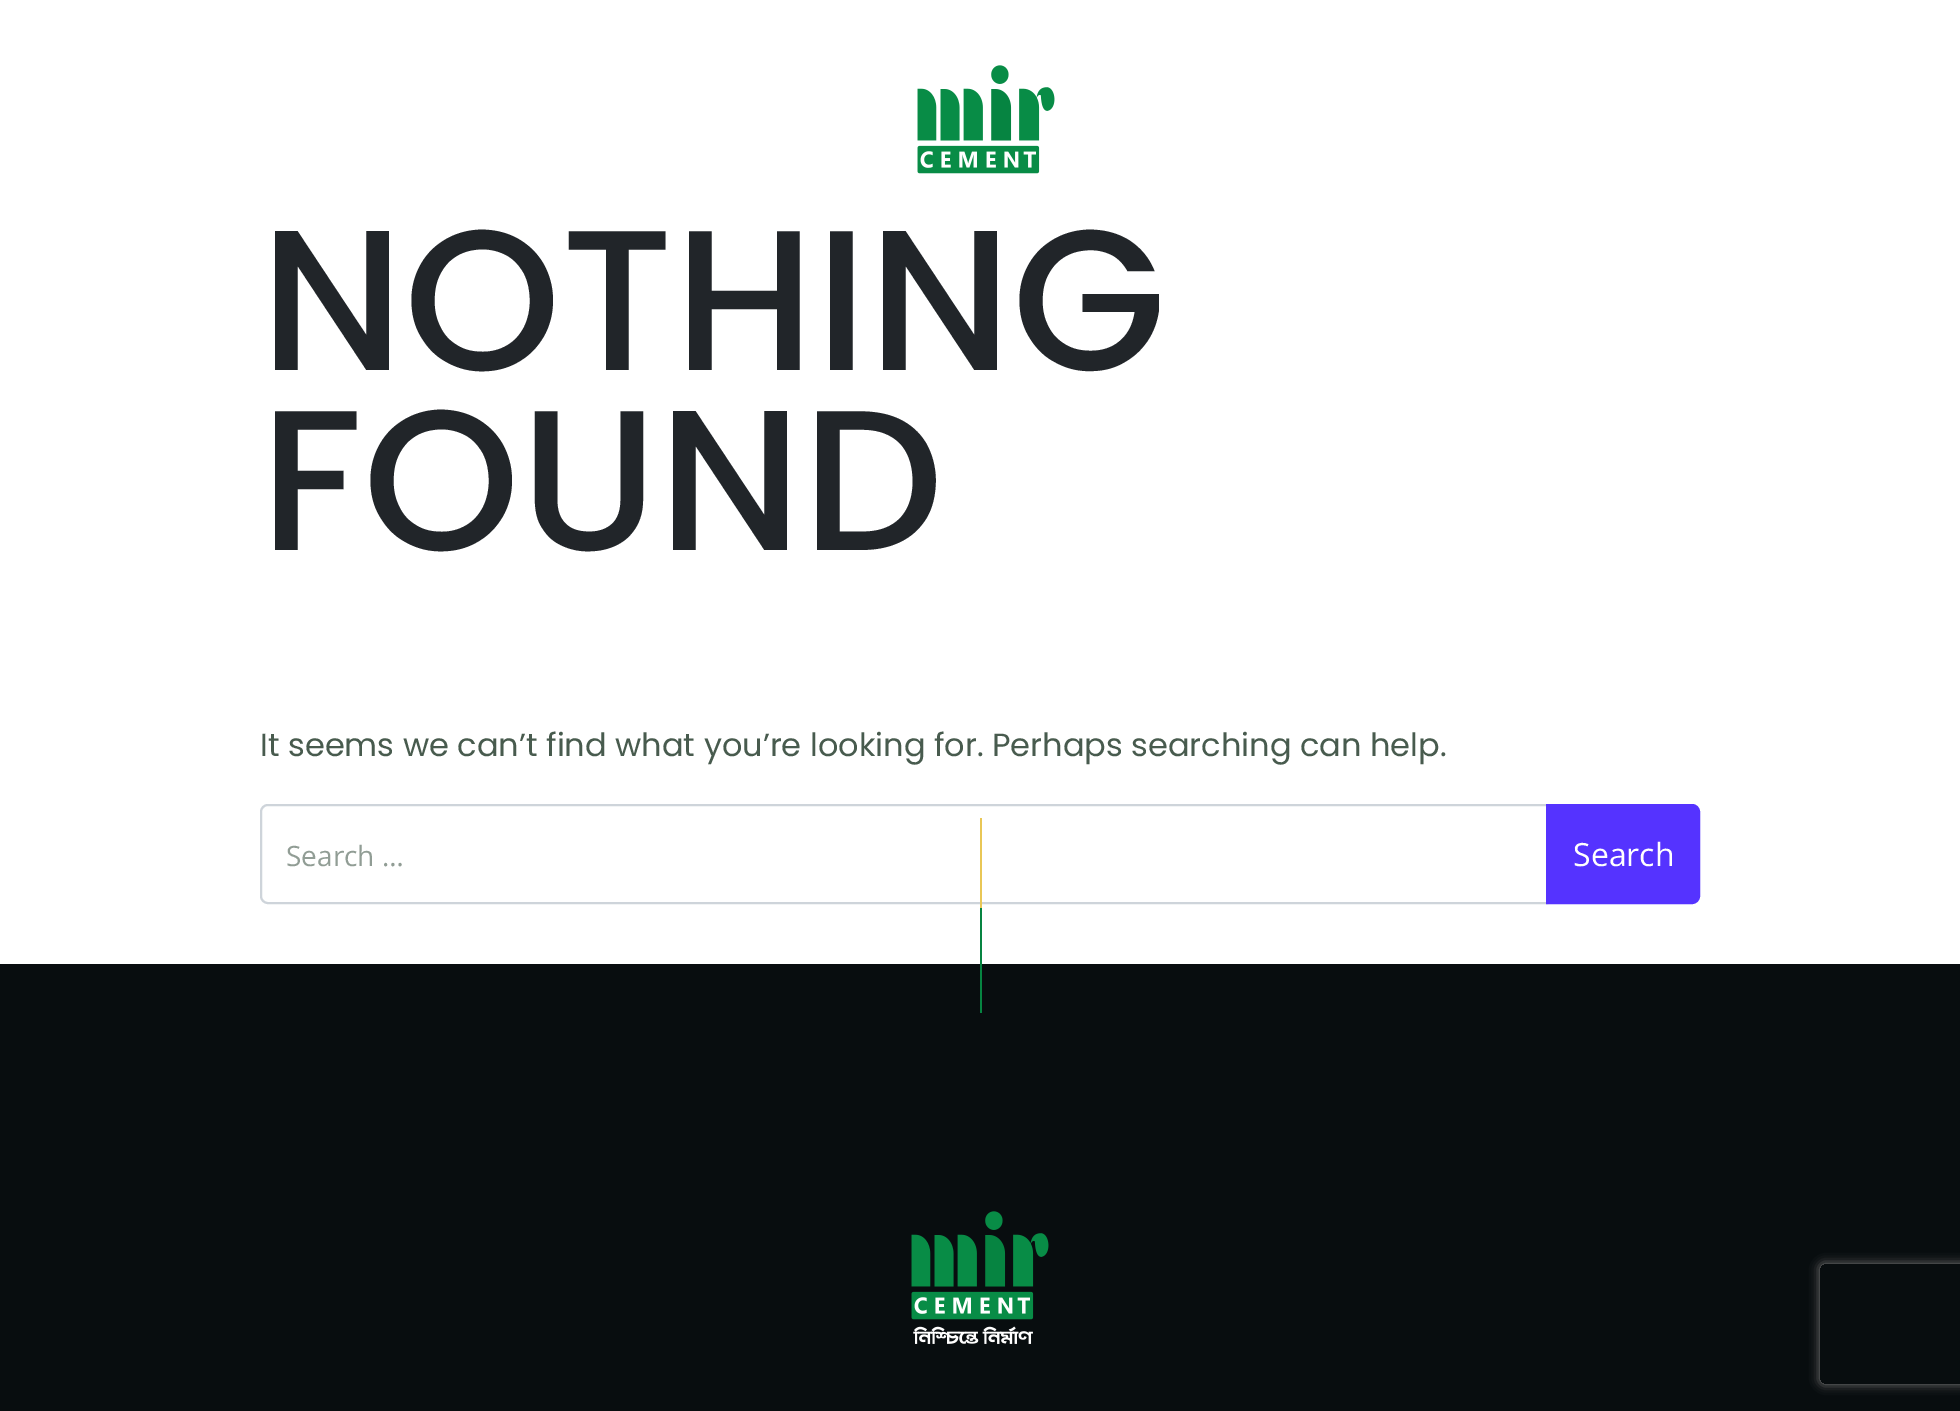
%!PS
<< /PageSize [1960 1411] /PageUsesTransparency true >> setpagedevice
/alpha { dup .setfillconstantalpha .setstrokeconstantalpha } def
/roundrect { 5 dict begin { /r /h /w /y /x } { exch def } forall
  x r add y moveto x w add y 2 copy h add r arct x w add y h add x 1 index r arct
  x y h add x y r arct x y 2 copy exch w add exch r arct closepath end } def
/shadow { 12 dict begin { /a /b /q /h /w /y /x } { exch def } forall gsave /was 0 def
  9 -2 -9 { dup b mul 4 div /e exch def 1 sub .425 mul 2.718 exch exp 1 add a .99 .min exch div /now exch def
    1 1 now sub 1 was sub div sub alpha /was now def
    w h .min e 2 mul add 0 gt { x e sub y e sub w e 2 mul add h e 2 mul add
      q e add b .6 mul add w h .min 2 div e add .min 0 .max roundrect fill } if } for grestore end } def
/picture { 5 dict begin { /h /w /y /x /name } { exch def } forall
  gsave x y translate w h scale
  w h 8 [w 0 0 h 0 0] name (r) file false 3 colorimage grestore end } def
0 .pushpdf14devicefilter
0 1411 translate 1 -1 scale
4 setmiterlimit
1 setgray
0 0 1960 1411 rectfill
(img1.rgb) 917 65 138 109 picture
/Poppins-Medium [200 0 0 -200 0 0] selectfont
0.129 0.145 0.161 setrgbcolor
260 370 moveto (NOTHING) show
260 550 moveto (FOUND) show
/Poppins-Regular [32 0 0 -32 0 0] selectfont
0.282 0.357 0.306 setrgbcolor
260 756 moveto (It seems we can’t find what you’re looking for. Perhaps searching can help.) show
0.808 0.831 0.855 setrgbcolor
2 setlinewidth
newpath 268 805 moveto 1547 805 lineto 1547 903 lineto 268 903 lineto 264 903 261 900 261 896 curveto 261 812 lineto 261 808 264 805 268 805 curveto closepath stroke
/OpenSans-Regular [28 0 0 -28 0 0] selectfont
0.569 0.616 0.584 setrgbcolor
286 866 moveto (Search …) show
0.333 0.2 1 setrgbcolor
newpath 1547 805 moveto 1692 805 lineto 1696 805 1699 808 1699 812 curveto 1699 896 lineto 1699 900 1696 903 1692 903 curveto 1547 903 lineto closepath gsave fill grestore
stroke
/OpenSans-Regular [32 0 0 -32 0 0] selectfont
1 setgray
1573 866 moveto (Search) show
0.031 0.051 0.059 setrgbcolor
0 964 1960 447 rectfill
(img2.rgb) 980 818 2 195 picture
(img3.rgb) 911 1211 138 133 picture
gsave
newpath 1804 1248 moveto 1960 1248 lineto 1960 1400 lineto 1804 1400 lineto closepath 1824 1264 moveto 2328 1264 lineto 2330 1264 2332 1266 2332 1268 curveto 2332 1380 lineto 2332 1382 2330 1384 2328 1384 curveto 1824 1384 lineto 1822 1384 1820 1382 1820 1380 curveto 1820 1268 lineto 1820 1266 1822 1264 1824 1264 curveto closepath eoclip newpath
0.502 setgray
1820 1264 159 120 4 5 1 shadow
grestore
.poppdf14devicefilter showpage
